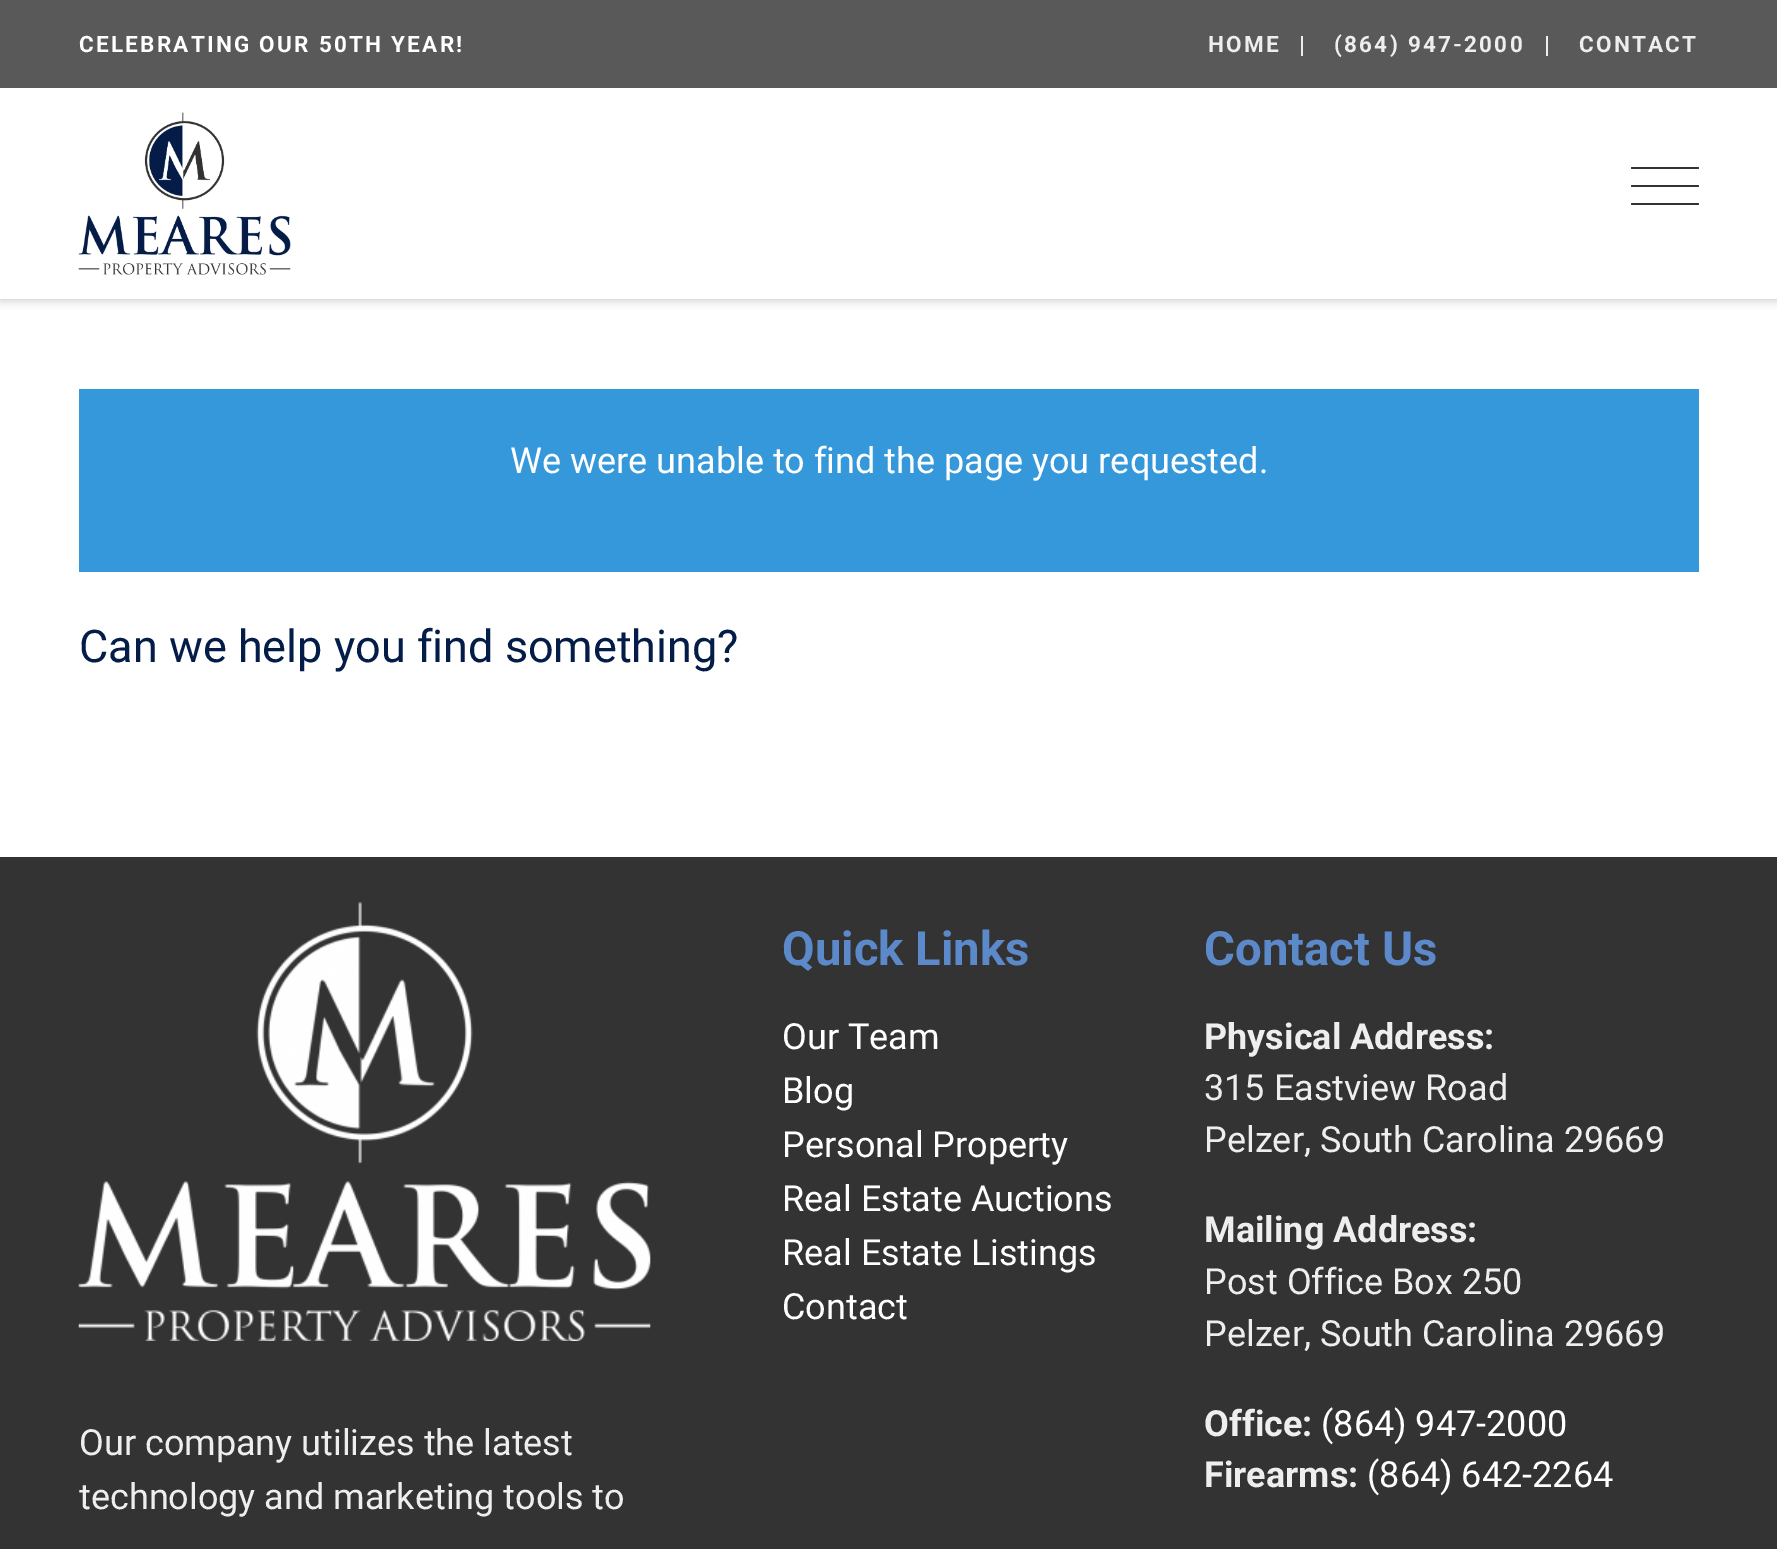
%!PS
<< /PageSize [1777 1549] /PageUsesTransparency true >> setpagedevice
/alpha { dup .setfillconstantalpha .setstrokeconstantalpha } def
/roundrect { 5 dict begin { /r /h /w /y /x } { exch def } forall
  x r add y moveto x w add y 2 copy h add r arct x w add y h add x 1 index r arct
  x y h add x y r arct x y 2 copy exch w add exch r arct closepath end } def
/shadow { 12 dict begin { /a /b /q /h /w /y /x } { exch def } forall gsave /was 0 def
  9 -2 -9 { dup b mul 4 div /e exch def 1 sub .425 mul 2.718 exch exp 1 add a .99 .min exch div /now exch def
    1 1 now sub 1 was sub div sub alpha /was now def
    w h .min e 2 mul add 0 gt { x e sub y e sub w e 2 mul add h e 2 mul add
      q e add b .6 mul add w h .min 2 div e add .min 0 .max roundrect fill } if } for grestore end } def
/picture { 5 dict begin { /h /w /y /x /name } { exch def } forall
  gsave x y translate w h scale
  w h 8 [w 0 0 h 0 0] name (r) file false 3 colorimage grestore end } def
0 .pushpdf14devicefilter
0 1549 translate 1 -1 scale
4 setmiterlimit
1 setgray
0 0 1777 1549 rectfill
gsave
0 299 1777 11 rectclip
0.733 setgray
0 0 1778 299 0 5.5 1 shadow
grestore
0.349 setgray
0 0 1777 88 rectfill
/Roboto-Bold [22.5 0 0 -22.5 0 0] selectfont
1 setgray
79 52 moveto 2.25 0 (CELEBRATING OUR 50TH YEAR!) ashow
0.933 setgray
1208 52 moveto 2.25 0 (HOME) ashow
1301 36 2 20 rectfill
1334 52 moveto 2.25 0 (\(864\) 947-2000) ashow
1546 36 2 20 rectfill
1579 52 moveto 2.25 0 (CONTACT) ashow
(img1.rgb) 78 112 213 163 picture
0.2 setgray
1631 167 68 2 1 roundrect fill
1631 185 68 2 1 roundrect fill
1631 203 68 2 1 roundrect fill
0.204 0.596 0.859 setrgbcolor
79 389 1620 183 rectfill
/Roboto-Regular [36 0 0 -36 0 0] selectfont
1 setgray
510 473 moveto (We were unable to find the page you requested.) show
/Roboto-Regular [45 0 0 -45 0 0] selectfont
0.016 0.11 0.282 setrgbcolor
79 662 moveto (Can we help you find something?) show
0.2 setgray
0 857 1777 692 rectfill
(img2.rgb) 78 902 573 439 picture
/Roboto-Regular [36 0 0 -36 0 0] selectfont
0.933 setgray
79 1455 moveto (Our company utilizes the latest) show
79 1509 moveto (technology and marketing tools to) show
/Roboto-Bold [47.25 0 0 -47.25 0 0] selectfont
0.357 0.537 0.788 setrgbcolor
782 965 moveto (Quick Links) show
/Roboto-Regular [36 0 0 -36 0 0] selectfont
1 setgray
782 1049 moveto (Our Team) show
782 1103 moveto (Blog) show
782 1157 moveto (Personal Property) show
782 1211 moveto (Real Estate Auctions) show
782 1265 moveto (Real Estate Listings) show
782 1319 moveto (Contact) show
/Roboto-Bold [47.25 0 0 -47.25 0 0] selectfont
0.357 0.537 0.788 setrgbcolor
1204 965 moveto (Contact Us) show
/Roboto-Bold [36 0 0 -36 0 0] selectfont
0.933 setgray
1204 1049 moveto (Physical Address:) show
/Roboto-Regular [36 0 0 -36 0 0] selectfont
1204 1100 moveto (315 Eastview Road) show
1204 1152 moveto (Pelzer, South Carolina 29669) show
/Roboto-Bold [36 0 0 -36 0 0] selectfont
1204 1242 moveto (Mailing Address:) show
/Roboto-Regular [36 0 0 -36 0 0] selectfont
1204 1294 moveto (Post Office Box 250) show
1204 1346 moveto (Pelzer, South Carolina 29669) show
/Roboto-Bold [36 0 0 -36 0 0] selectfont
1204 1436 moveto (Office:) show
/Roboto-Regular [36 0 0 -36 0 0] selectfont
1 setgray
1321 1436 moveto (\(864\) 947-2000) show
/Roboto-Bold [36 0 0 -36 0 0] selectfont
0.933 setgray
1204 1487 moveto (Firearms:) show
/Roboto-Regular [36 0 0 -36 0 0] selectfont
1 setgray
1367 1487 moveto (\(864\) 642-2264) show
.poppdf14devicefilter showpage
